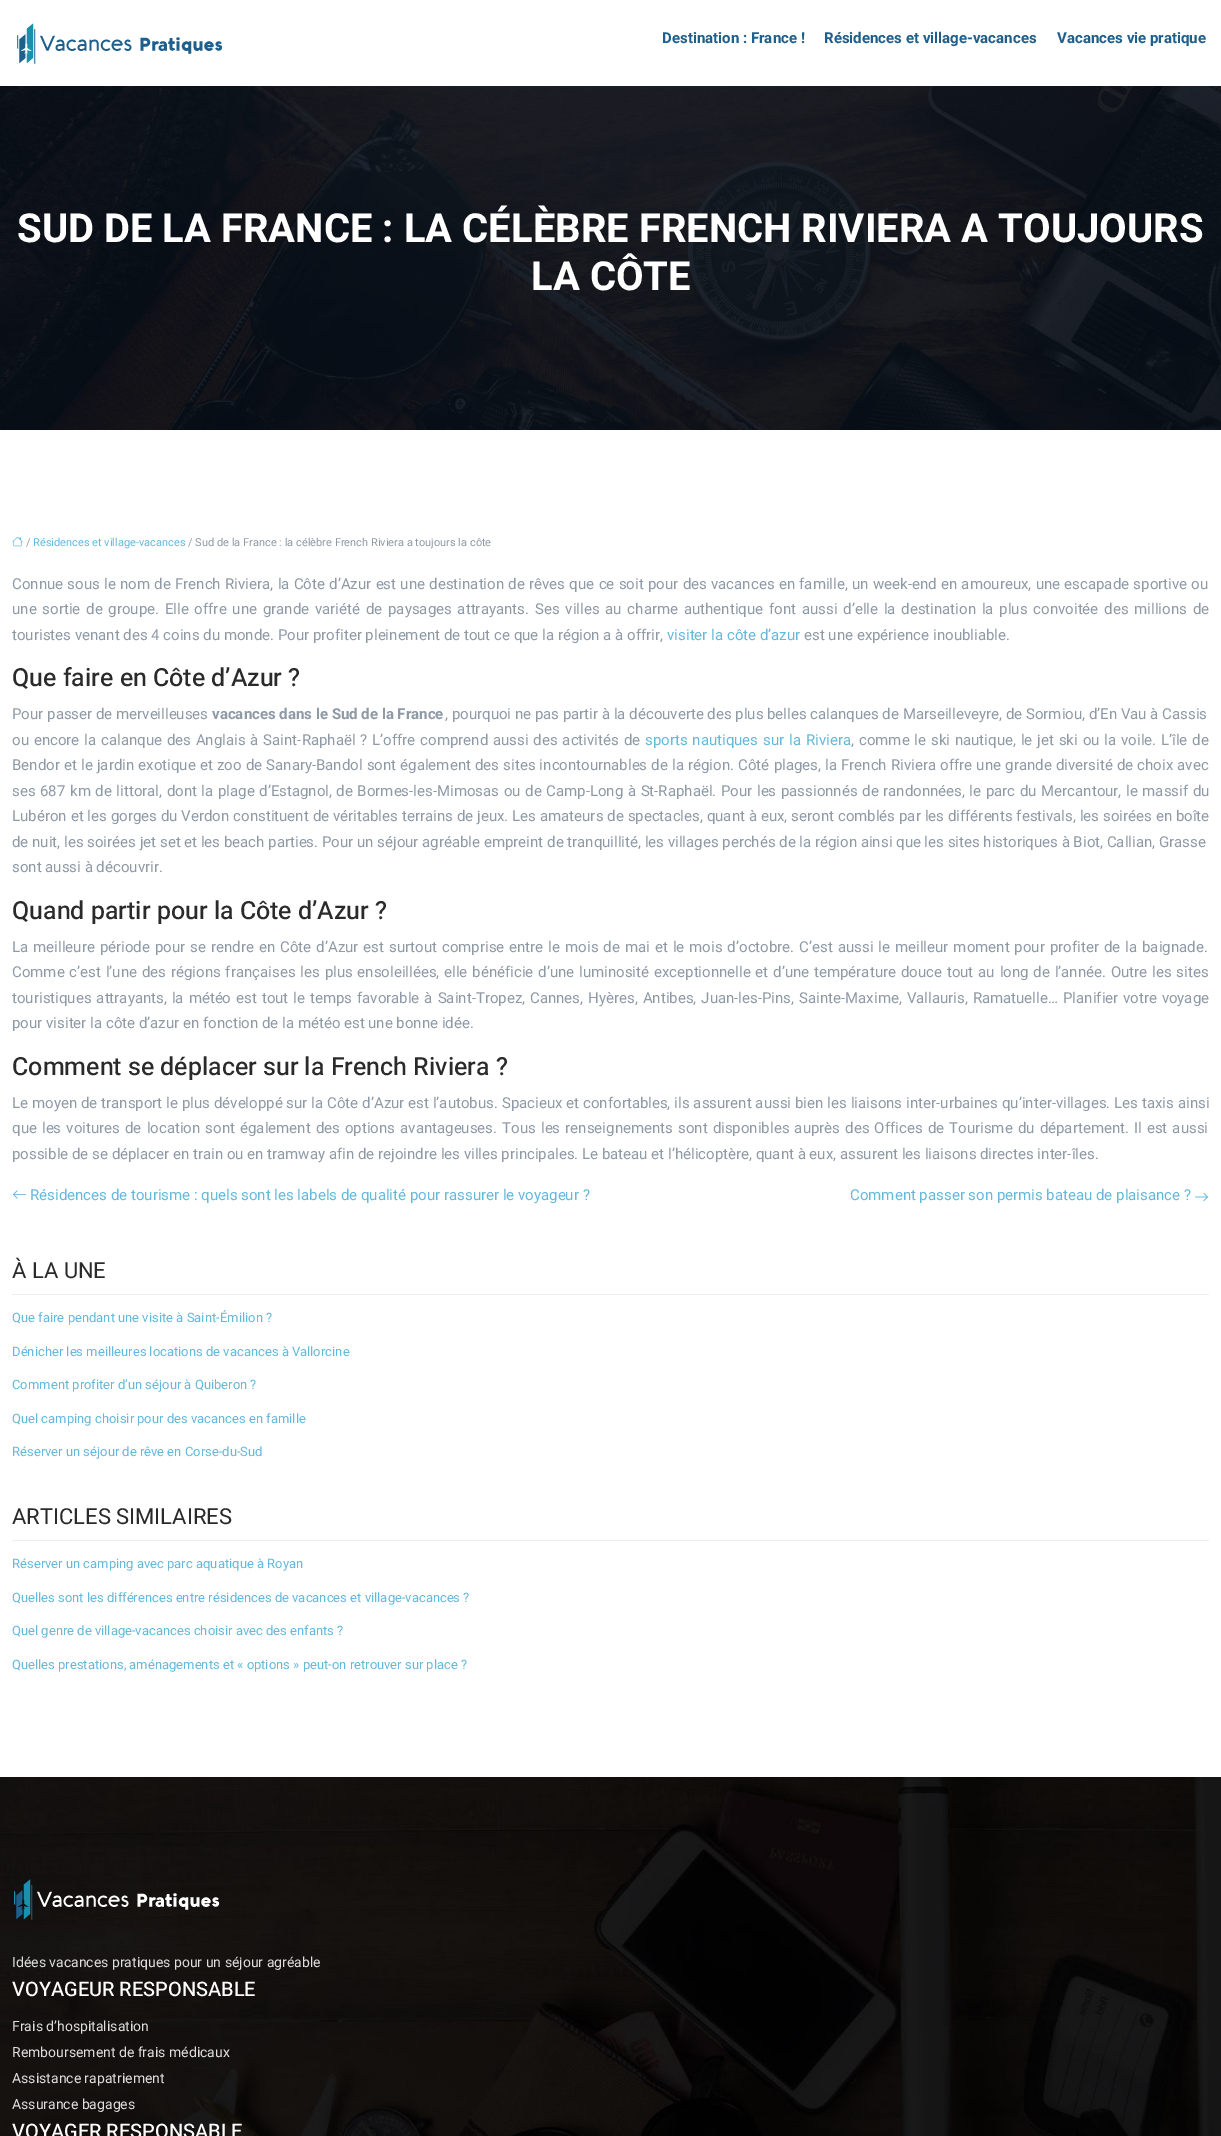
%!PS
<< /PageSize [1221 2136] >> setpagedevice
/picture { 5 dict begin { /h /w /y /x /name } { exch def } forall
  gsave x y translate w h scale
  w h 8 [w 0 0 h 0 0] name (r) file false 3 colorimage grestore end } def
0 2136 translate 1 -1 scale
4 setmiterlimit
1 setgray
0 0 1221 2136 rectfill
(img1.rgb) 17 23 206 41 picture
/Heebo-Bold [15 0 0 -15 0 0] selectfont
0.122 0.373 0.545 setrgbcolor
662 43 moveto (Destination : France !) show
824 43 moveto (Résidences et village-vacances) show
1057 43 moveto (Vacances vie pratique) show
(img2.rgb) 0 86 1221 344 picture
/Heebo-Bold [40 0 0 -40 0 0] selectfont
1 setgray
17 242 moveto (SUD DE LA FRANCE : LA CÉLÈBRE FRENCH RIVIERA A TOUJOURS) show
531 290 moveto (LA CÔTE) show
(img3.rgb) 12 536 11 11 picture
/Heebo-Regular [11 0 0 -11 0 0] selectfont
0.561 0.604 0.655 setrgbcolor
26 546 moveto (/) show
0.392 0.725 0.863 setrgbcolor
33 546 moveto (Résidences et village-vacances) show
0.561 0.604 0.655 setrgbcolor
188 546 moveto (/ Sud de la France : la célèbre French Riviera a toujours la côte) show
/Heebo-Regular [15 0 0 -15 0 0] selectfont
12 589 moveto 0.6 0 32 (Connue sous le nom de French Riviera, la Côte d’Azur est une destination de rêves que ce soit pour des vacances en famille, un week-end en amoureux, une escapade sportive ou) widthshow
12 614 moveto 2.1 0 32 (une sortie de groupe. Elle offre une grande variété de paysages attrayants.) widthshow
535 614 moveto 2.1 0 32 (Ses villes au charme authentique font aussi d’elle la destination la plus convoitée des millions de) widthshow
12 640 moveto (touristes venant des 4 coins du monde. Pour profiter pleinement de tout ce que la région a à offrir,) show
0.392 0.725 0.863 setrgbcolor
667 640 moveto (visiter la côte d’azur) show
0.561 0.604 0.655 setrgbcolor
804 640 moveto (est une expérience inoubliable.) show
/Heebo-Medium [25 0 0 -25 0 0] selectfont
0.165 setgray
12 686 moveto (Que faire en Côte d’Azur ?) show
/Heebo-Regular [15 0 0 -15 0 0] selectfont
0.561 0.604 0.655 setrgbcolor
12 719 moveto (Pour passer de merveilleuses) show
/Heebo-Bold [15 0 0 -15 0 0] selectfont
212 719 moveto (vacances dans le Sud de la France) show
/Heebo-Regular [15 0 0 -15 0 0] selectfont
445 719 moveto (, pourquoi ne pas partir à la découverte des plus belles calanques de Marseilleveyre, de Sormiou, d’En Vau à Cassis) show
12 745 moveto 1.15 0 32 (ou encore la calanque des Anglais à Saint-Raphaël ? L’offre comprend aussi des activités de) widthshow
0.392 0.725 0.863 setrgbcolor
645 745 moveto 1.15 0 32 (sports nautiques sur la Riviera) widthshow
0.561 0.604 0.655 setrgbcolor
851 745 moveto 1.15 0 32 (, comme le ski nautique, le jet ski ou la voile. L’île de) widthshow
12 770 moveto 0.45 0 32 (Bendor et le jardin exotique et zoo de Sanary-Bandol sont également des sites incontournables de la région. Côté plages, la French Riviera offre une grande diversité de choix avec) widthshow
12 796 moveto 0.9 0 32 (ses 687 km de littoral, dont la plage d’Estagnol, de Bormes-les-Mimosas ou de Camp-Long à St-Raphaël. Pour les passionnés de randonnées, le parc du Mercantour, le massif du) widthshow
12 821 moveto 0.2 0 32 (Lubéron et les gorges du Verdon constituent de véritables terrains de jeux. Les amateurs de spectacles, quant à eux, seront comblés par les différents festivals, les soirées en boîte) widthshow
12 847 moveto (de nuit, les soirées jet set et les beach parties. Pour un séjour agréable empreint de tranquillité, les villages perchés de la région ainsi que les sites historiques à Biot, Callian, Grasse) show
12 872 moveto (sont aussi à découvrir.) show
/Heebo-Medium [25 0 0 -25 0 0] selectfont
0.165 setgray
12 919 moveto (Quand partir pour la Côte d’Azur ?) show
/Heebo-Regular [15 0 0 -15 0 0] selectfont
0.561 0.604 0.655 setrgbcolor
12 952 moveto 1.3 0 32 (La meilleure période pour se rendre en Côte d’Azur est surtout comprise entre le mois de mai et le mois d’octobre. C’est aussi le meilleur moment pour profiter de la baignade.) widthshow
12 977 moveto 1.15 0 32 (Comme c’est l’une des régions françaises les plus ensoleillées, elle bénéficie d’une luminosité exceptionnelle et d’une température douce tout au long de l’année. Outre les sites) widthshow
12 1003 moveto 1.25 0 32 (touristiques attrayants, la météo est tout le temps favorable à Saint-Tropez, Cannes, Hyères, Antibes, Juan-les-Pins, Sainte-Maxime, Vallauris, Ramatuelle…) widthshow
1063 1003 moveto 1 0 32 (Planifier votre voyage) widthshow
12 1028 moveto (pour visiter la côte d’azur en fonction de la météo est une bonne idée.) show
/Heebo-Medium [25 0 0 -25 0 0] selectfont
0.165 setgray
12 1075 moveto (Comment se déplacer sur la French Riviera ?) show
/Heebo-Regular [15 0 0 -15 0 0] selectfont
0.561 0.604 0.655 setrgbcolor
12 1108 moveto 0.2 0 32 (Le moyen de transport le plus développé sur la Côte d’Azur est l’autobus. Spacieux et confortables, ils assurent aussi bien les liaisons inter-urbaines qu’inter-villages. Les taxis ainsi) widthshow
12 1133 moveto 1.4 0 32 (que les voitures de location sont également des options avantageuses. Tous les renseignements sont disponibles auprès des Offices de Tourisme du département. Il est aussi) widthshow
12 1159 moveto (possible de se déplacer en train ou en tramway afin de rejoindre les villes principales. Le bateau et l’hélicoptère, quant à eux, assurent les liaisons directes inter-îles.) show
(img4.rgb) 13 1190 13 9 picture
0.392 0.725 0.863 setrgbcolor
30 1200 moveto (Résidences de tourisme : quels sont les labels de qualité pour rassurer le voyageur ?) show
850 1200 moveto (Comment passer son permis bateau de plaisance ?) show
(img5.rgb) 1195 1192 13 10 picture
0.925 setgray
12 1294 1197 1 rectfill
/Heebo-Regular [22 0 0 -22 0 0] selectfont
0.165 setgray
12 1278 moveto (À LA UNE) show
/Heebo-Regular [13 0 0 -13 0 0] selectfont
0.392 0.725 0.863 setrgbcolor
12 1322 moveto (Que faire pendant une visite à Saint-Émilion ?) show
12 1356 moveto (Dénicher les meilleures locations de vacances à Vallorcine) show
12 1389 moveto (Comment profiter d’un séjour à Quiberon ?) show
12 1423 moveto (Quel camping choisir pour des vacances en famille) show
12 1456 moveto (Réserver un séjour de rêve en Corse-du-Sud) show
0.925 setgray
12 1540 1197 1 rectfill
/Heebo-Regular [22 0 0 -22 0 0] selectfont
0.165 setgray
12 1524 moveto (ARTICLES SIMILAIRES) show
/Heebo-Regular [13 0 0 -13 0 0] selectfont
0.392 0.725 0.863 setrgbcolor
12 1568 moveto (Réserver un camping avec parc aquatique à Royan) show
12 1602 moveto (Quelles sont les différences entre résidences de vacances et village-vacances ?) show
12 1635 moveto (Quel genre de village-vacances choisir avec des enfants ?) show
12 1669 moveto (Quelles prestations, aménagements et « options » peut-on retrouver sur place ?) show
(img6.rgb) 0 1777 1221 359 picture
(img7.rgb) 14 1879 206 41 picture
/Heebo-Regular [14 0 0 -14 0 0] selectfont
0.878 0.875 0.875 setrgbcolor
12 1967 moveto (Idées vacances pratiques pour un séjour agréable) show
/Heebo-Medium [20 0 0 -20 0 0] selectfont
1 setgray
12 1996 moveto (VOYAGEUR RESPONSABLE) show
/Heebo-Regular [14 0 0 -14 0 0] selectfont
0.878 0.875 0.875 setrgbcolor
12 2031 moveto (Frais d’hospitalisation) show
12 2057 moveto (Remboursement de frais médicaux) show
12 2083 moveto (Assistance rapatriement) show
12 2109 moveto (Assurance bagages) show
/Heebo-Medium [20 0 0 -20 0 0] selectfont
1 setgray
12 2138 moveto (VOYAGER RESPONSABLE) show
showpage
